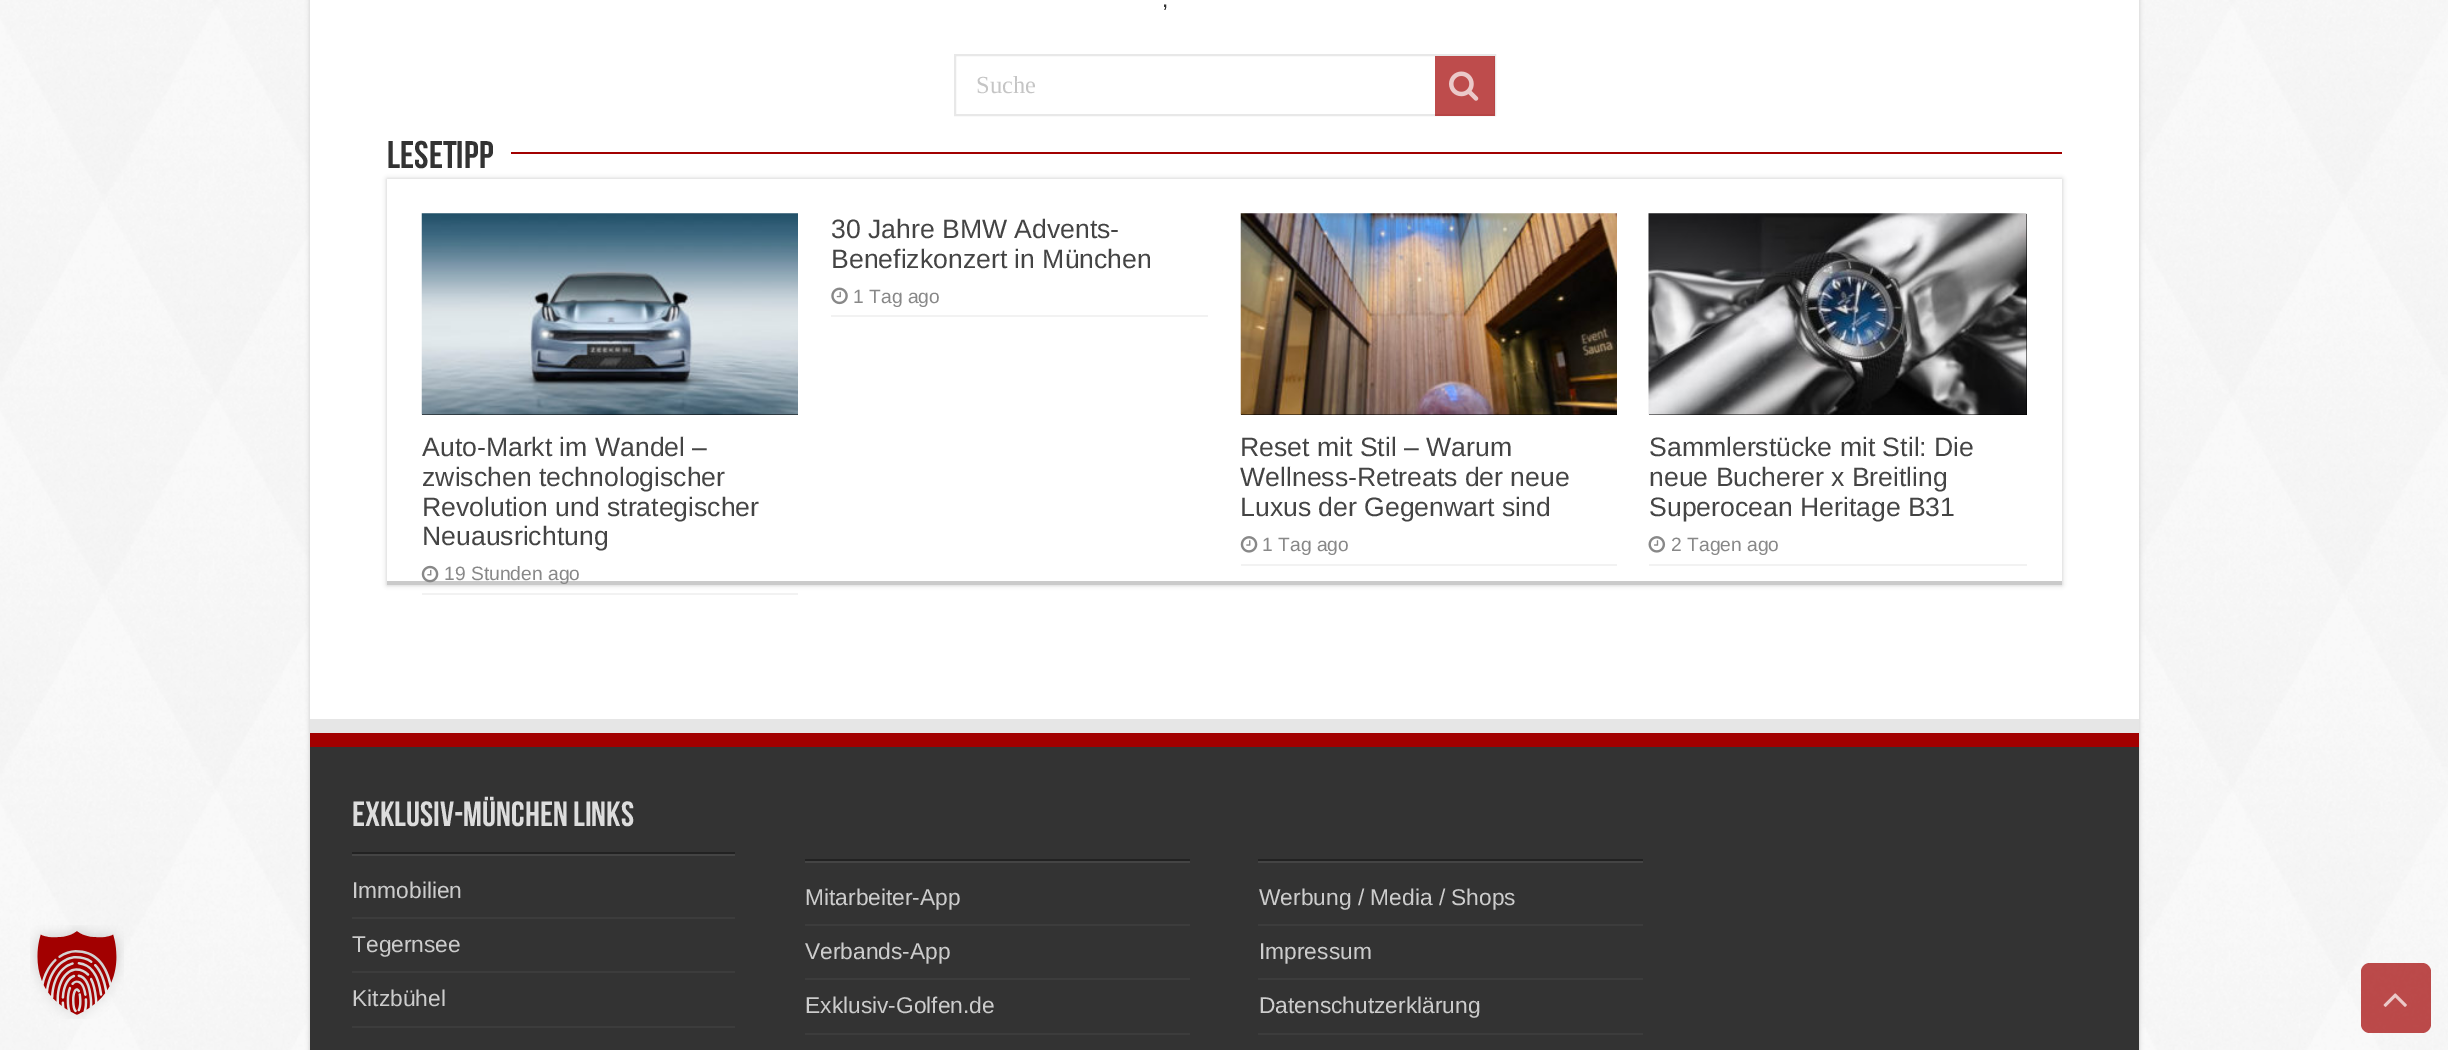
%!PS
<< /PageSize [2448 1050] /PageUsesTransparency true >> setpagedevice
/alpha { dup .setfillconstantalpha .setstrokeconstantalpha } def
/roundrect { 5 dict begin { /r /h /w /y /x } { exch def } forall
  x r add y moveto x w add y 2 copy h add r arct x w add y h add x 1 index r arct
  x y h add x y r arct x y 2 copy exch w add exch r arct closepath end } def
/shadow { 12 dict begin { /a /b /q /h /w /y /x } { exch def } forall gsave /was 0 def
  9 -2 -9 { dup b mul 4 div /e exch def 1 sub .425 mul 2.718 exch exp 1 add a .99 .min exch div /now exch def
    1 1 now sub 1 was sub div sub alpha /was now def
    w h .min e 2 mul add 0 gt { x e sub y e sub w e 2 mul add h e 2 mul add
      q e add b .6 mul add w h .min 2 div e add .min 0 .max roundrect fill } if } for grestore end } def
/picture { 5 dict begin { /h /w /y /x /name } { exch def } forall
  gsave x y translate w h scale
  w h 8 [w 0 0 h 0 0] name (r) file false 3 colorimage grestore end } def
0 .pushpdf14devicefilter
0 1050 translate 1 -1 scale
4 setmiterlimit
1 setgray
0 0 2448 1050 rectfill
(img1.rgb) 0 0 2448 1050 picture
(img2.rgb) 30 925 94 94 picture
0.792 setgray
310 -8 1829 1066 0 2.5 1 shadow
1 setgray
310 0 1829 719 rectfill
/LiberationSans-Regular [22.75 0 0 -22.75 0 0] selectfont
0.2 setgray
1162 7 moveto (,) show
0.91 setgray
2 setlinewidth
955 55 540 60 rectstroke
/LiberationSerif-Regular [24.5 0 0 -24.5 0 0] selectfont
0.773 setgray
976 93 moveto (Suche) show
0.7 alpha
0.635 0 0 setrgbcolor
1435 56 60 60 rectfill
1 alpha
(img3.rgb) 1449 71 30 30 picture
/BebasNeue-Bold [38.5 0 0 -38.5 0 0] selectfont
0.2 setgray
387 168 moveto (LESETIPP) show
0.635 0 0 setrgbcolor
511 152 1551 2 rectfill
0.792 setgray
387 179 1675 406 0 2.5 1 shadow
1 setgray
387 179 1675 402 rectfill
0.792 setgray
387 581 1675 4 rectfill
/LiberationSans-Regular [26.6 0 0 -26.6 0 0] selectfont
0.267 setgray
831 238 moveto (30 Jahre BMW Advents-) show
831 268 moveto (Benefizkonzert in München) show
0.949 setgray
831 315 377 2 rectfill
(img4.rgb) 831 287 17 18 picture
/LiberationSans-Regular [19.25 0 0 -19.25 0 0] selectfont
0.533 setgray
853 303 moveto (1 Tag ago) show
0 setgray
422 414 376 1 rectfill
(img5.rgb) 421 213 377 202 picture
/LiberationSans-Regular [26.6 0 0 -26.6 0 0] selectfont
0.267 setgray
422 456 moveto (Auto-Markt im Wandel –) show
422 486 moveto (zwischen technologischer) show
422 516 moveto (Revolution und strategischer) show
422 545 moveto (Neuausrichtung) show
0.949 setgray
422 593 376 2 rectfill
(img6.rgb) 421 565 18 18 picture
/LiberationSans-Regular [19.25 0 0 -19.25 0 0] selectfont
0.533 setgray
444 580 moveto (19 Stunden ago) show
0 setgray
1241 414 376 1 rectfill
(img7.rgb) 1240 213 377 202 picture
/LiberationSans-Regular [26.6 0 0 -26.6 0 0] selectfont
0.267 setgray
1240 456 moveto (Reset mit Stil – Warum) show
1240 486 moveto (Wellness-Retreats der neue) show
1240 516 moveto (Luxus der Gegenwart sind) show
0.949 setgray
1241 564 376 2 rectfill
(img8.rgb) 1240 536 18 17 picture
/LiberationSans-Regular [19.25 0 0 -19.25 0 0] selectfont
0.533 setgray
1262 551 moveto (1 Tag ago) show
0 setgray
1649 214 378 201 rectfill
(img9.rgb) 1648 213 379 202 picture
/LiberationSans-Regular [26.6 0 0 -26.6 0 0] selectfont
0.267 setgray
1649 456 moveto (Sammlerstücke mit Stil: Die) show
1649 486 moveto (neue Bucherer x Breitling) show
1649 516 moveto (Superocean Heritage B31) show
0.949 setgray
1649 564 378 2 rectfill
(img10.rgb) 1648 536 18 17 picture
/LiberationSans-Regular [19.25 0 0 -19.25 0 0] selectfont
0.533 setgray
1671 551 moveto (2 Tagen ago) show
0.902 setgray
newpath 310 719 moveto 310 733 lineto 2138 733 lineto 2138 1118 lineto 2139 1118 lineto 2139 719 lineto closepath fill
0.2 setgray
310 747 1829 303 rectfill
0.635 0 0 setrgbcolor
310 733 1829 14 rectfill
0.133 setgray
352 852 383 2 rectfill
/BebasNeue-Bold [35 0 0 -35 0 0] selectfont
0.867 setgray
352 826 moveto (Exklusiv-München Links) show
0.267 setgray
352 854 383 2 rectfill
0.235 setgray
352 917 383 2 rectfill
/LiberationSans-Regular [22.75 0 0 -22.75 0 0] selectfont
0.8 setgray
352 898 moveto (Immobilien) show
0.235 setgray
352 971 383 2 rectfill
0.8 setgray
352 952 moveto (Tegernsee) show
0.235 setgray
352 1026 383 2 rectfill
0.8 setgray
352 1006 moveto (Kitzbühel) show
0.133 setgray
805 859 385 2 rectfill
0.267 setgray
805 861 385 2 rectfill
0.235 setgray
805 924 385 2 rectfill
0.8 setgray
805 905 moveto (Mitarbeiter-App) show
0.235 setgray
805 978 385 2 rectfill
0.8 setgray
805 959 moveto (Verbands-App) show
0.235 setgray
805 1033 385 2 rectfill
0.8 setgray
805 1013 moveto (Exklusiv-Golfen.de) show
0.133 setgray
1258 859 385 2 rectfill
0.267 setgray
1258 861 385 2 rectfill
0.235 setgray
1258 924 385 2 rectfill
0.8 setgray
1259 905 moveto (Werbung / Media / Shops) show
0.235 setgray
1258 978 385 2 rectfill
0.8 setgray
1259 959 moveto (Impressum) show
0.235 setgray
1258 1033 385 2 rectfill
0.8 setgray
1259 1013 moveto (Datenschutzerklärung) show
0.7 alpha
0.635 0 0 setrgbcolor
2361 963 70 70 9 roundrect fill
1 alpha
(img11.rgb) 2383 993 24 14 picture
.poppdf14devicefilter showpage
